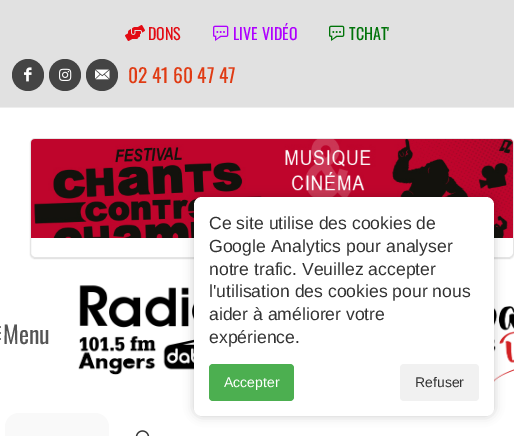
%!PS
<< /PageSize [514 436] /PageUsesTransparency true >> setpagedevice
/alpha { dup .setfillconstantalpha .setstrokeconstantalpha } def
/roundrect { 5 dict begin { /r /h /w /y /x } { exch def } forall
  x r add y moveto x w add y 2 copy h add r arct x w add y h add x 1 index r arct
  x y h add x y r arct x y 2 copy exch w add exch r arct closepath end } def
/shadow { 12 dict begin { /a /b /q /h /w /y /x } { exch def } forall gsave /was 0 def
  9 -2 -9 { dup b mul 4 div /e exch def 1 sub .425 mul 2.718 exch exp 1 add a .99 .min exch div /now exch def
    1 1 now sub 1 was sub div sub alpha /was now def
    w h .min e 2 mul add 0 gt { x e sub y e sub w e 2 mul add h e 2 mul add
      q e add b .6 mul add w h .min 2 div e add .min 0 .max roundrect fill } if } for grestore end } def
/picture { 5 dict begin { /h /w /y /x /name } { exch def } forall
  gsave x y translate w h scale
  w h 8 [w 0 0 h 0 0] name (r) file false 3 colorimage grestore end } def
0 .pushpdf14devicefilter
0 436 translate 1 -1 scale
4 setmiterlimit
1 setgray
0 0 514 436 rectfill
0.882 setgray
0 0 514 107 rectfill
0.933 setgray
0 107 514 1 rectfill
(img1.rgb) 125 25 20 16 picture
/Oswald-Regular [16 0 0 -16 0 0] selectfont
0.89 0.043 0.075 setrgbcolor
148 40 moveto (DONS) show
(img2.rgb) 213 25 16 16 picture
0.682 0 1 setrgbcolor
233 40 moveto (LIVE VIDÉO) show
(img3.rgb) 329 25 16 16 picture
0 0.451 0.035 setrgbcolor
349 40 moveto (TCHAT') show
0.267 setgray
newpath 28 75 16 0 360 arc closepath fill
(img4.rgb) 24 67 8 15 picture
newpath 65 75 16 0 360 arc closepath fill
(img5.rgb) 59 68 13 13 picture
newpath 102 75 16 0 360 arc closepath fill
(img6.rgb) 95 69 15 11 picture
/Oswald-Regular [19.5 0 0 -19.5 0 0] selectfont
0.878 0.231 0.075 setrgbcolor
128 83 moveto (02 41 60 47 47) show
0 setgray
30 139 484 120 5 0.5 0.1 shadow
1 setgray
30 138 484 120 5 roundrect fill
0.1 alpha
0 setgray
30.5 138.5 483 119 4.5 roundrect stroke
1 alpha
(img7.rgb) 31 139 482 99 picture
(img8.rgb) 0 326 1 14 picture
/Oswald-Regular [24 0 0 -24 0 0] selectfont
0.333 setgray
3 344 moveto (Menu) show
(img9.rgb) 78 285 116 90 picture
(img10.rgb) 494 306 20 76 picture
0.976 setgray
5 413 104 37 14 roundrect fill
(img11.rgb) 135 430 15 6 picture
0 setgray
194 197 300 219 8 5 0.2 shadow
1 setgray
194 197 300 219 8 roundrect fill
/LiberationSans-Regular [17.6 0 0 -17.6 0 0] selectfont
0.2 setgray
209 229 moveto (Ce site utilise des cookies de) show
209 252 moveto (Google Analytics pour analyser) show
209 275 moveto (notre trafic. Veuillez accepter) show
209 297 moveto (l'utilisation des cookies pour nous) show
209 320 moveto (aider à améliorer votre) show
209 343 moveto (expérience.) show
0.298 0.686 0.314 setrgbcolor
209 364 85 37 4 roundrect fill
/LiberationSans-Regular [14 0 0 -14 0 0] selectfont
1 setgray
224 387 moveto (Accepter) show
0.945 setgray
400 364 79 37 4 roundrect fill
0.2 setgray
415 387 moveto (Refuser) show
.poppdf14devicefilter showpage
